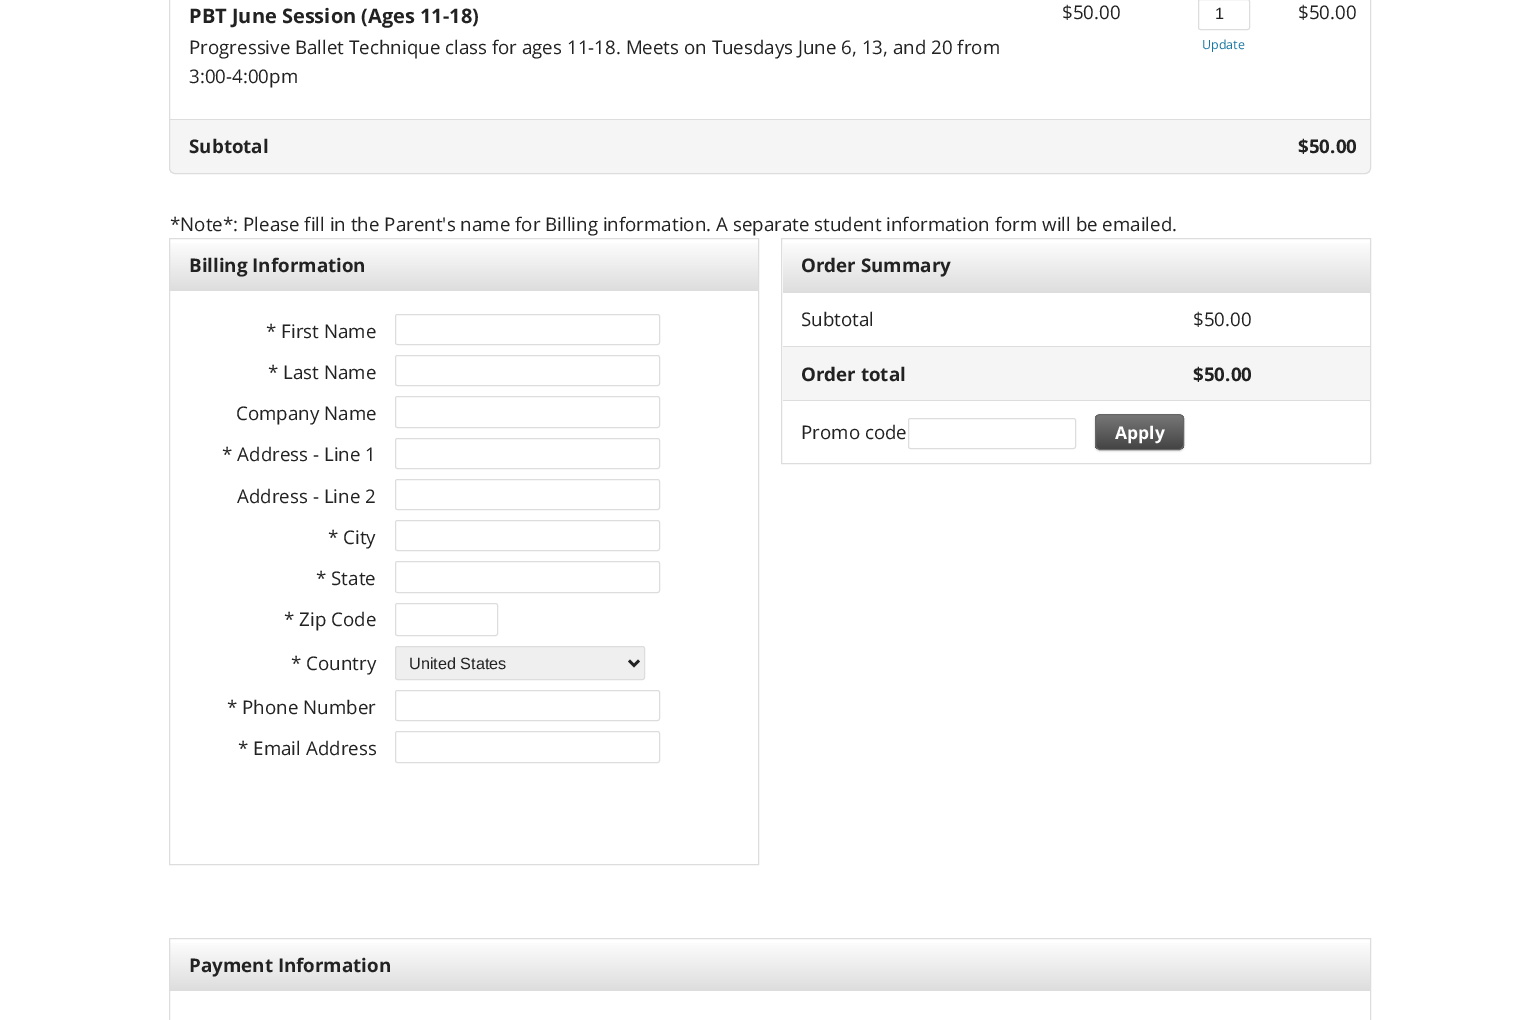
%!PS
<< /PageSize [1539 1020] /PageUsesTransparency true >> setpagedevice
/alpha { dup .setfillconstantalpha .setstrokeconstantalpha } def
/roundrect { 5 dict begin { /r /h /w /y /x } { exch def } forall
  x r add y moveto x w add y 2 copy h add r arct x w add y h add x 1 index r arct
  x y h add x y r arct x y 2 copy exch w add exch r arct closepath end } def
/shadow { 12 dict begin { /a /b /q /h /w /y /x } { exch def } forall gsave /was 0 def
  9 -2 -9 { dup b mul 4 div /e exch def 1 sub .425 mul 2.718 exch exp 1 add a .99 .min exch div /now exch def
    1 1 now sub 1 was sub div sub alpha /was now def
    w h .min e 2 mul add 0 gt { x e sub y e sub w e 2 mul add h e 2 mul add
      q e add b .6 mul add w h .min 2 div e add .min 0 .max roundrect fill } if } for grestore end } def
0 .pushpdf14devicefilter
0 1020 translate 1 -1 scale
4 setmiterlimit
1 setgray
0 0 1539 1020 rectfill
0.867 setgray
1198.5 -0.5 51 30 2 roundrect stroke
0.961 setgray
170 120 1200 53 rectfill
0.867 setgray
170 119 1201 1 rectfill
169.5 -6.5 1201 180 5.5 roundrect stroke
/OpenSans-Bold [20 0 0 -20 0 0] selectfont
0.133 setgray
189 23 moveto (PBT June Session \(Ages 11-18\)) show
/OpenSans-Regular [18.75 0 0 -18.75 0 0] selectfont
189 54 moveto (Progressive Ballet Technique class for ages 11-18. Meets on Tuesdays June 6, 13, and 20 from) show
189 83 moveto (3:00-4:00pm) show
1062 19 moveto ($50.00) show
/LiberationSans-Regular [16.25 0 0 -16.25 0 0] selectfont
1215 19 moveto (1) show
/OpenSans-Regular [12.5 0 0 -12.5 0 0] selectfont
0.086 0.459 0.635 setrgbcolor
1202 49 moveto (Update) show
/OpenSans-Regular [18.75 0 0 -18.75 0 0] selectfont
0.133 setgray
1298 19 moveto ($50.00) show
/OpenSans-Bold [18.75 0 0 -18.75 0 0] selectfont
189 153 moveto (Subtotal) show
1298 153 moveto ($50.00) show
/OpenSans-Regular [18.75 0 0 -18.75 0 0] selectfont
170 231 moveto (*Note*: Please fill in the Parent's name for Billing information. A separate student information form will be emailed.) show
gsave newpath 170 243 moveto 758 243 lineto 758 291 lineto 170 291 lineto closepath clip newpath
<< /ShadingType 2 /ColorSpace /DeviceRGB /Coords [464 239 464 291] /Extend [true true] /Function << /FunctionType 2 /Domain [0 1] /C0 [1 1 1] /C1 [0.867 0.867 0.867] /N 1 >> >> shfill grestore
0.867 setgray
395.5 314.5 264 30 2 roundrect stroke
395.5 355.5 264 30 2 roundrect stroke
395.5 396.5 264 31 2 roundrect stroke
395.5 438.5 264 30 2 roundrect stroke
395.5 479.5 264 30 2 roundrect stroke
395.5 520.5 264 30 2 roundrect stroke
395.5 561.5 264 31 2 roundrect stroke
395.5 603.5 102 32 2 roundrect stroke
0.937 setgray
395.5 646.5 249 33 2 roundrect gsave fill grestore
0.867 setgray
stroke
0.133 setgray
2.5 setlinewidth
newpath 629 660.5 moveto 634 665.5 lineto 639 660.5 lineto stroke
0.867 setgray
1 setlinewidth
395.5 690.5 264 30 2 roundrect stroke
395.5 731.5 264 31 2 roundrect stroke
169.5 238.5 589 626 rectstroke
/OpenSans-Bold [18.75 0 0 -18.75 0 0] selectfont
0.133 setgray
189 272 moveto (Billing Information) show
/OpenSans-Regular [18.75 0 0 -18.75 0 0] selectfont
266 338 moveto (* First Name) show
268 379 moveto (* Last Name) show
236 420 moveto (Company Name) show
222 461 moveto (* Address - Line 1) show
237 503 moveto (Address - Line 2) show
328 544 moveto (* City) show
316 585 moveto (* State) show
284 626 moveto (* Zip Code) show
291 670 moveto (* Country) show
/LiberationSans-Regular [16.25 0 0 -16.25 0 0] selectfont
409 669 moveto (United States) show
/OpenSans-Regular [18.75 0 0 -18.75 0 0] selectfont
227 714 moveto (* Phone Number) show
238 755 moveto (* Email Address) show
gsave newpath 783 243 moveto 1175 243 lineto 1175 293 lineto 783 293 lineto closepath clip newpath
<< /ShadingType 2 /ColorSpace /DeviceRGB /Coords [979 239 979 293] /Extend [true true] /Function << /FunctionType 2 /Domain [0 1] /C0 [1 1 1] /C1 [0.867 0.867 0.867] /N 1 >> >> shfill grestore
gsave newpath 1175 243 moveto 1370 243 lineto 1370 293 lineto 1175 293 lineto closepath clip newpath
<< /ShadingType 2 /ColorSpace /DeviceRGB /Coords [1273 239 1273 293] /Extend [true true] /Function << /FunctionType 2 /Domain [0 1] /C0 [1 1 1] /C1 [0.867 0.867 0.867] /N 1 >> >> shfill grestore
0.867 setgray
1370 291 1 1 rectfill
0.961 setgray
783 347 587 53 rectfill
0.867 setgray
783 346 588 1 rectfill
783 400 588 1 rectfill
908.5 418.5 167 30 2 roundrect stroke
0 setgray
1095 415 89 36 5 1 0.2 shadow
gsave
1095 414 89 36 5 roundrect clip newpath
gsave newpath 1095 415 moveto 1184 415 lineto 1184 449 lineto 1095 449 lineto closepath clip newpath
<< /ShadingType 2 /ColorSpace /DeviceRGB /Coords [1139 415 1139 449] /Extend [true true] /Function << /FunctionType 2 /Domain [0 1] /C0 [0.467 0.467 0.467] /C1 [0.267 0.267 0.267] /N 1 >> >> shfill grestore
grestore
0.4 setgray
1095.5 414.5 88 35 4.5 roundrect stroke
0.867 setgray
781.5 238.5 589 225 rectstroke
/OpenSans-Bold [18.75 0 0 -18.75 0 0] selectfont
0.133 setgray
801 272 moveto (Order Summary) show
/OpenSans-Regular [18.75 0 0 -18.75 0 0] selectfont
801 326 moveto (Subtotal) show
1193 326 moveto ($50.00) show
/OpenSans-Bold [18.75 0 0 -18.75 0 0] selectfont
801 381 moveto (Order total) show
1193 381 moveto ($50.00) show
/OpenSans-Regular [18.75 0 0 -18.75 0 0] selectfont
801 439 moveto (Promo code) show
/OpenSans-Bold [17.5 0 0 -17.5 0 0] selectfont
1 setgray
1115 439 moveto (Apply) show
gsave newpath 170 943 moveto 1370 943 lineto 1370 991 lineto 170 991 lineto closepath clip newpath
<< /ShadingType 2 /ColorSpace /DeviceRGB /Coords [770 939 770 991] /Extend [true true] /Function << /FunctionType 2 /Domain [0 1] /C0 [1 1 1] /C1 [0.867 0.867 0.867] /N 1 >> >> shfill grestore
0.867 setgray
169.5 938.5 1201 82 rectstroke
/OpenSans-Bold [18.75 0 0 -18.75 0 0] selectfont
0.133 setgray
189 972 moveto (Payment Information) show
.poppdf14devicefilter showpage
